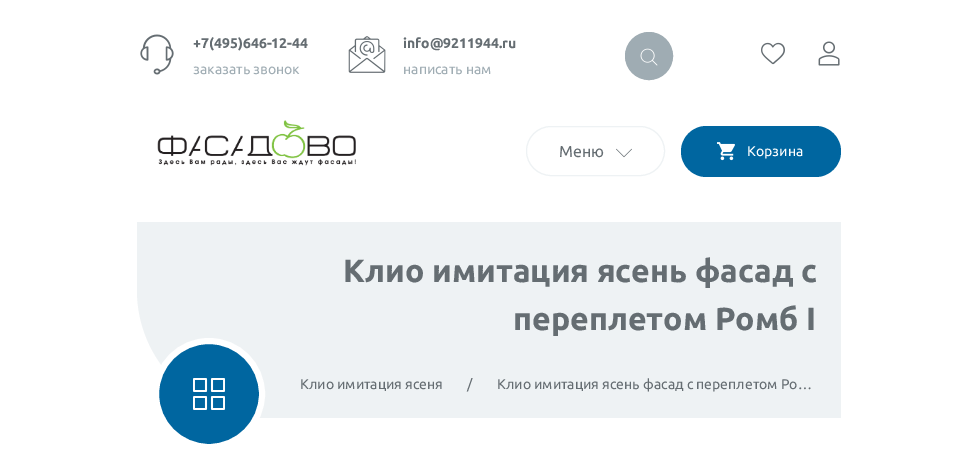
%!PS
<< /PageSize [977 463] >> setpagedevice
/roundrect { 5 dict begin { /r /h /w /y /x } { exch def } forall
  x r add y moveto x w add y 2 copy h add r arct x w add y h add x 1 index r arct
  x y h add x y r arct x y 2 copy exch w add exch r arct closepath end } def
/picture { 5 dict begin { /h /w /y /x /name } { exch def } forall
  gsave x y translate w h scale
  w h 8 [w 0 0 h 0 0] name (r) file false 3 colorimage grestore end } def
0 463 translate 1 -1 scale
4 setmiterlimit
1 setgray
0 0 977 463 rectfill
(img1.rgb) 140 34 34 41 picture
/Ubuntu-Bold [14 0 0 -14 0 0] selectfont
0.396 0.427 0.447 setrgbcolor
193 48 moveto (+7\(495\)646-12-44) show
/Ubuntu-Regular [14 0 0 -14 0 0] selectfont
0.627 0.678 0.706 setrgbcolor
193 74 moveto (заказать звонок) show
(img2.rgb) 348 36 38 37 picture
/Ubuntu-Bold [14 0 0 -14 0 0] selectfont
0.396 0.427 0.447 setrgbcolor
403 48 moveto (info@9211944.ru) show
/Ubuntu-Regular [14 0 0 -14 0 0] selectfont
0.627 0.678 0.706 setrgbcolor
403 74 moveto (написать нам) show
0.624 0.675 0.702 setrgbcolor
newpath 649 56 23.5 0 360 arc closepath gsave fill grestore
stroke
(img3.rgb) 640 48 18 18 picture
(img4.rgb) 761 42 24 23 picture
(img5.rgb) 818 41 22 25 picture
(img6.rgb) 157 120 199 46 picture
0.933 0.949 0.957 setrgbcolor
526.5 126.5 138 49 24.5 roundrect stroke
/Ubuntu-Regular [16 0 0 -16 0 0] selectfont
0.396 0.427 0.447 setrgbcolor
559 157 moveto (Меню) show
(img7.rgb) 616 148 16 10 picture
0 0.4 0.627 setrgbcolor
681 126 160 51 25.5 roundrect fill
(img8.rgb) 717 142 18 19 picture
/Ubuntu-Regular [14 0 0 -14 0 0] selectfont
1 setgray
747 156 moveto (Корзина) show
0.933 0.949 0.957 setrgbcolor
newpath 137 222 moveto 841 222 lineto 841 418 lineto 265 418 lineto 194.5 418 137 360.5 137 290 curveto closepath fill
/Ubuntu-Bold [32 0 0 -32 0 0] selectfont
0.396 0.427 0.447 setrgbcolor
343 282 moveto (Клио имитация ясень фасад с) show
513 330 moveto (переплетом Ромб I) show
0 0.4 0.627 setrgbcolor
newpath 209 394 53 0 360 arc closepath gsave fill grestore
1 setgray
6 setlinewidth
stroke
(img9.rgb) 193 378 32 32 picture
/Ubuntu-Regular [14 0 0 -14 0 0] selectfont
0.396 0.427 0.447 setrgbcolor
300 389 moveto (Клио имитация ясеня) show
467 389 moveto (/) show
497 389 moveto (Клио имитация ясень фасад с переплетом Ро…) show
showpage
